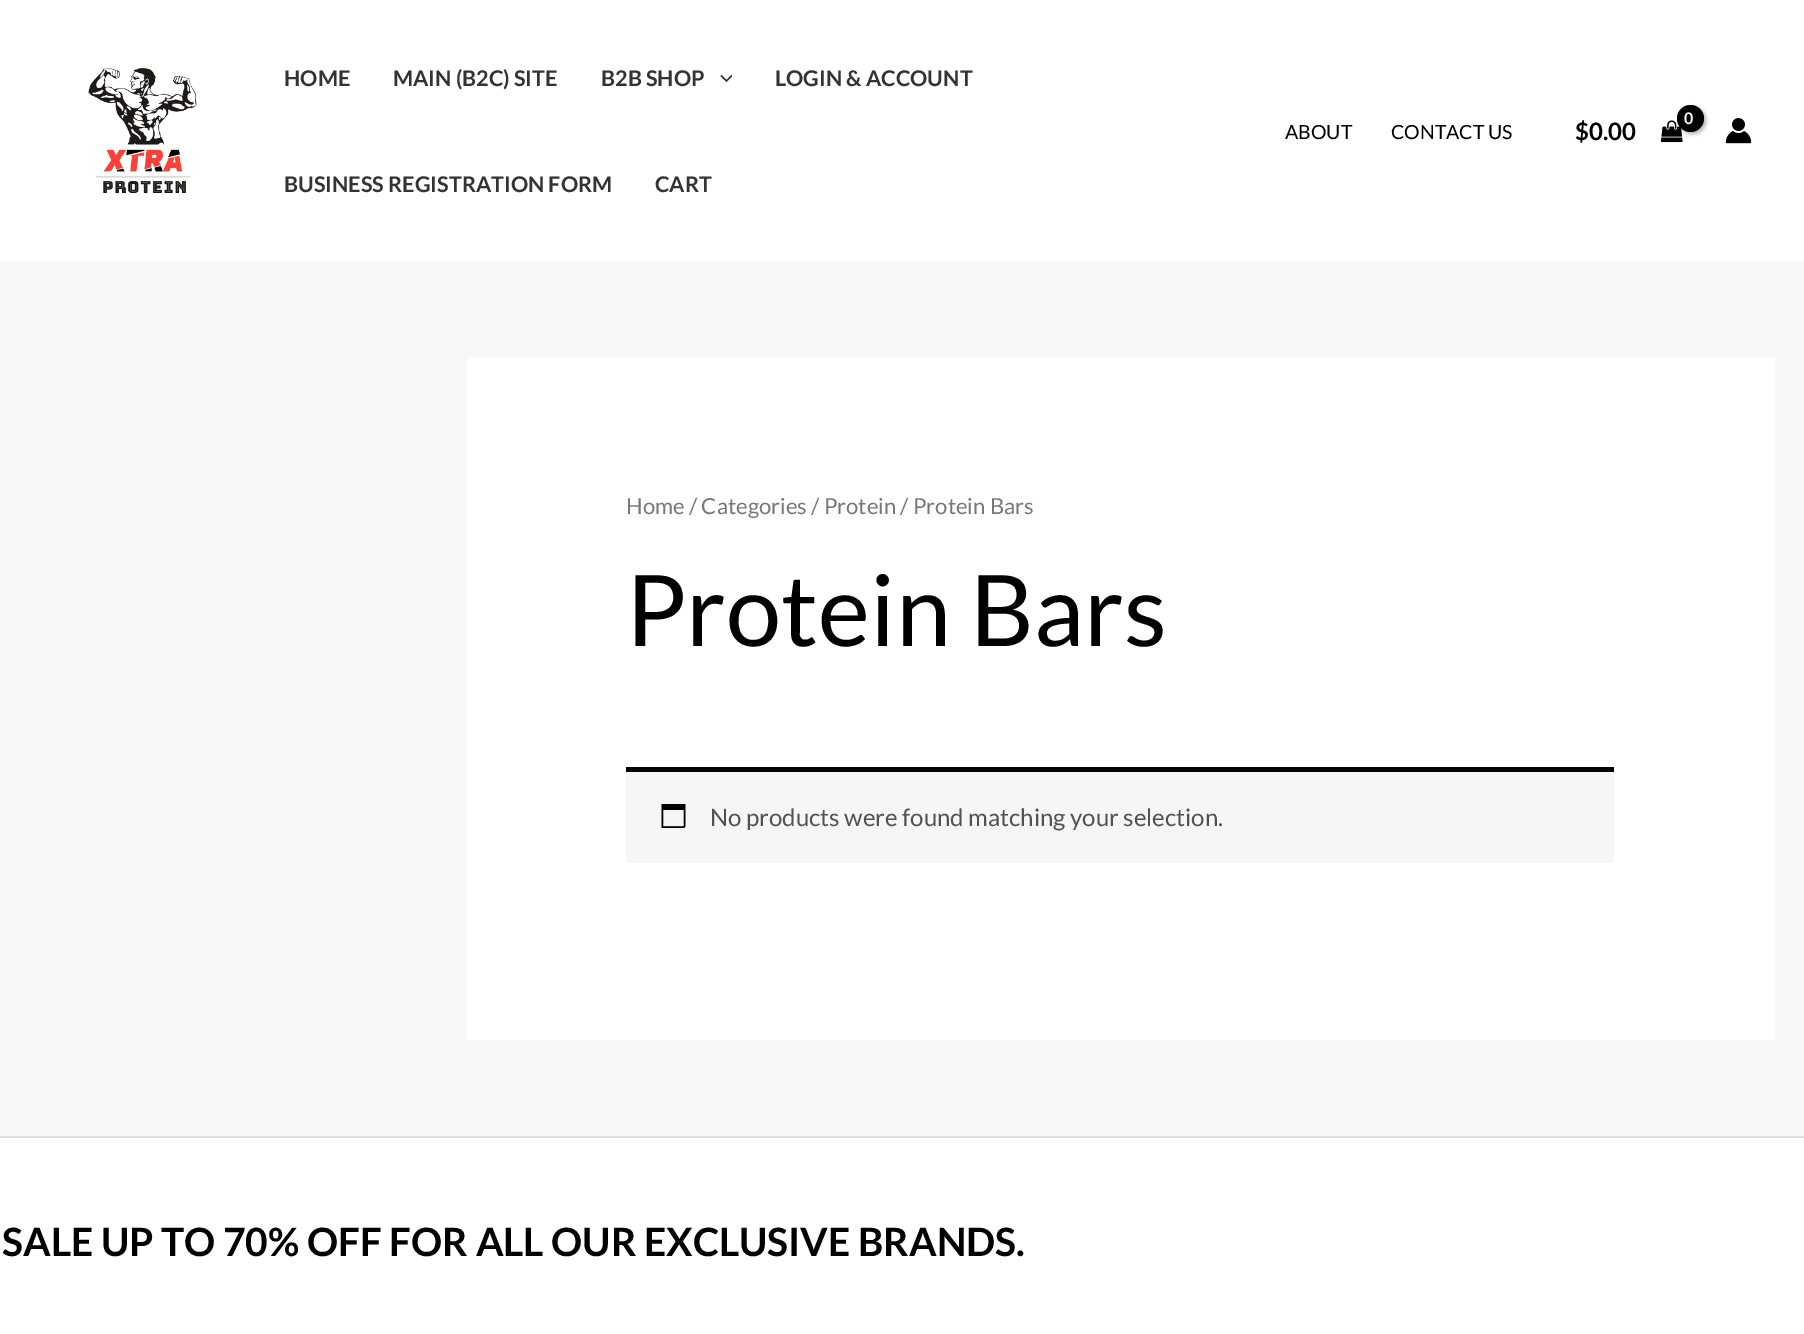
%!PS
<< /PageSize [1804 1334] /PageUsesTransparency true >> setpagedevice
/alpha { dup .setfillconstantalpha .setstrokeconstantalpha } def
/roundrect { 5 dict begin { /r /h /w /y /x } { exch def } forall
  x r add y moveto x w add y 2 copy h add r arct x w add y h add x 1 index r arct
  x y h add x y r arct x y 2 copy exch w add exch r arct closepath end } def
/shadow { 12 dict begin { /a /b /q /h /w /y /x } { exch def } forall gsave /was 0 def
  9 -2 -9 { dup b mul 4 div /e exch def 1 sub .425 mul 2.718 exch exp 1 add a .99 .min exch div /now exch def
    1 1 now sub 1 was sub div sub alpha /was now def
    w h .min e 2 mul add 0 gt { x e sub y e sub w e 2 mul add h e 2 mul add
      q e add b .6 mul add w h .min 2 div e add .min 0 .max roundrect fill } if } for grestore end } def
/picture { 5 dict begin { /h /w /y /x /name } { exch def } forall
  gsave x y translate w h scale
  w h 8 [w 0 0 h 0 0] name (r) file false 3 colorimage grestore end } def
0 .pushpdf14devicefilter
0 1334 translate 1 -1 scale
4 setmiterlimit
0.961 0.969 0.976 setrgbcolor
0 0 1804 1334 rectfill
1 setgray
0 0 1804 261 rectfill
(img1.rgb) 88 68 109 126 picture
/Lato-Bold [21.6 0 0 -21.6 0 0] selectfont
0.2 setgray
284 86 moveto (HOME) show
393 86 moveto (MAIN \(B2C\) SITE) show
601 86 moveto (B2B SHOP) show
(img2.rgb) 720 74 12 9 picture
775 86 moveto (LOGIN & ACCOUNT) show
284 192 moveto (BUSINESS REGISTRATION FORM) show
655 192 moveto (CART) show
/Lato-Regular [19.5 0 0 -19.5 0 0] selectfont
0 setgray
1285 139 moveto (ABOUT) show
1391 139 moveto (CONTACT US) show
(img3.rgb) 1661 120 22 23 picture
1679 107 27 27 13.5 2 0.3 shadow
newpath 1690.5 118.5 13.5 0 360 arc closepath fill
/Lato-Bold [16 0 0 -16 0 0] selectfont
1 setgray
1684 124 moveto -1 0 (0) ashow
/Lato-Bold [24 0 0 -24 0 0] selectfont
0 setgray
1575 140 moveto ($0.00) show
(img4.rgb) 1725 118 27 26 picture
1 setgray
467 357 1308 683 rectfill
/Lato-Regular [22.1 0 0 -22.1 0 0] selectfont
0.467 setgray
626 514 moveto (Home / Categories / Protein / Protein Bars) show
/Lato-Regular [99 0 0 -99 0 0] selectfont
0 setgray
626 646 moveto (Protein Bars) show
0.969 0.965 0.969 setrgbcolor
626 772 988 91 rectfill
0 setgray
626 767 988 5 rectfill
(img5.rgb) 661 804 25 24 picture
/Lato-Regular [24 0 0 -24 0 0] selectfont
0.318 setgray
710 826 moveto (No products were found matching your selection.) show
1 setgray
0 1138 1804 196 rectfill
0.867 setgray
0 1136 1804 2 rectfill
/Lato-Bold [39 0 0 -39 0 0] selectfont
0 setgray
2 1256 moveto (SALE UP TO 70% OFF FOR ALL OUR EXCLUSIVE BRANDS.) show
.poppdf14devicefilter showpage
